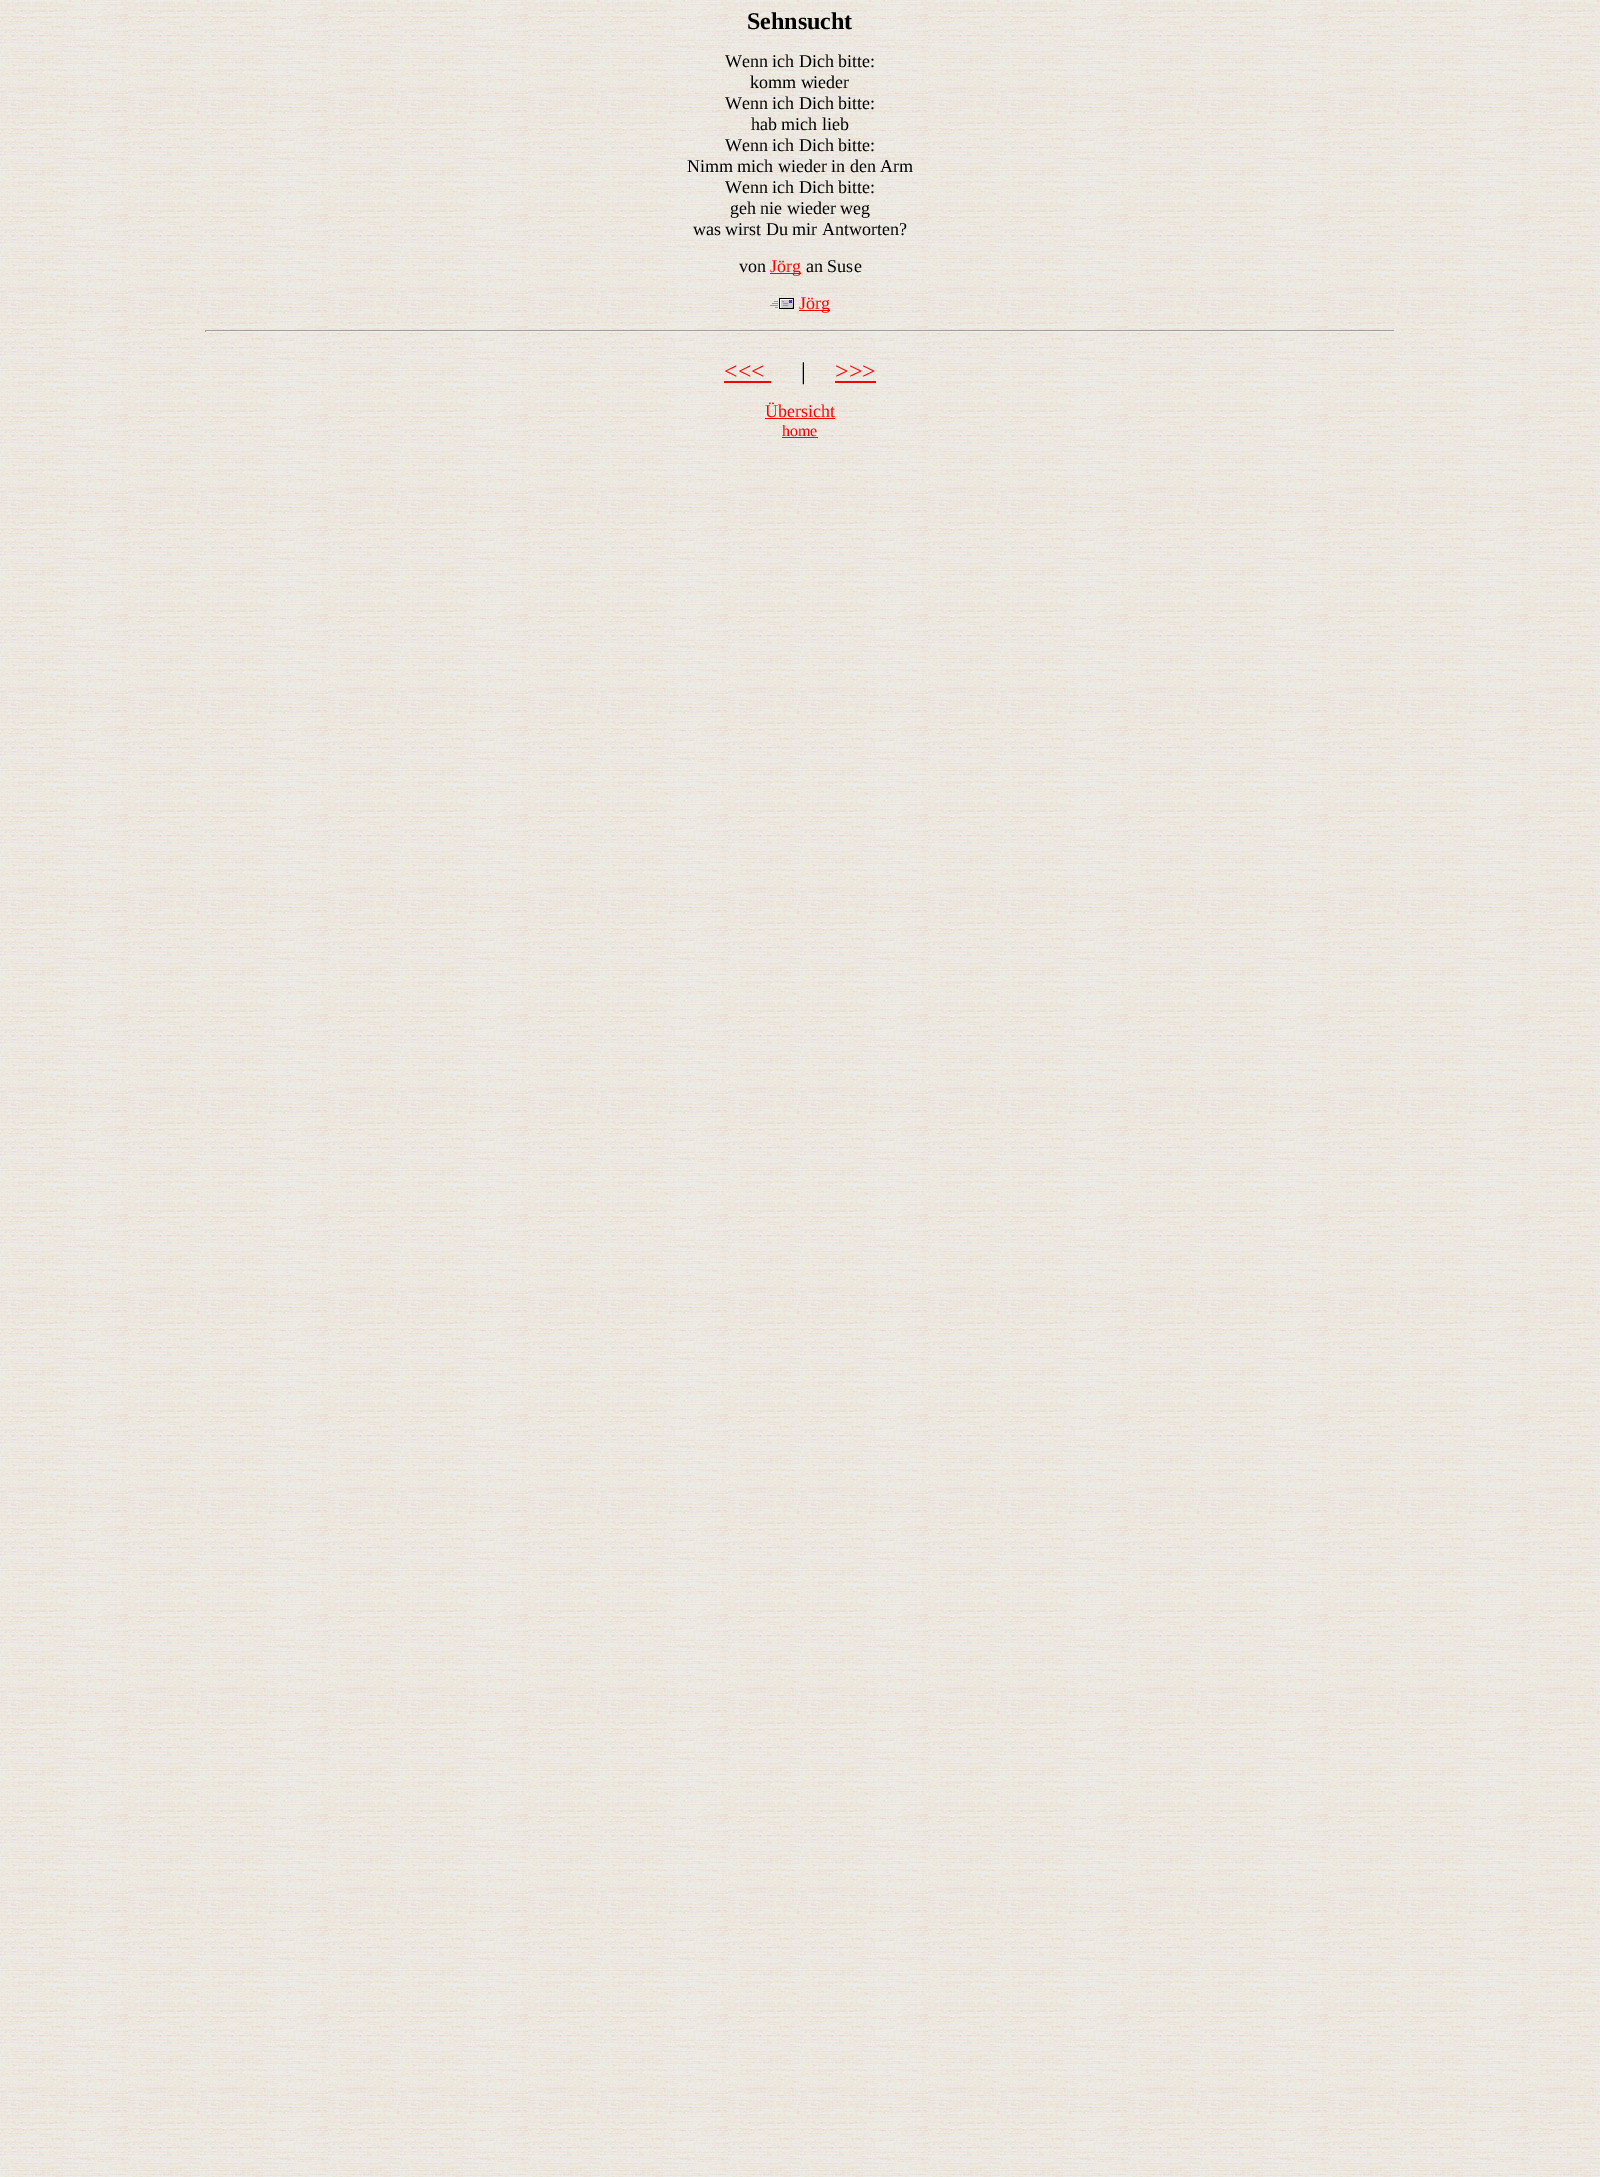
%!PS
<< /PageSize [1600 2177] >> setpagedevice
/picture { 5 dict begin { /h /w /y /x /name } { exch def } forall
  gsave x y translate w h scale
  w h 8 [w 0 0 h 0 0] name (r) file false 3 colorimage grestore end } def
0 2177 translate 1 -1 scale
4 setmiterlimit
1 setgray
0 0 1600 2177 rectfill
(img1.rgb) 0 0 1600 2177 picture
/LiberationSerif-Bold [24 0 0 -24 0 0] selectfont
0 setgray
747 29 moveto (Sehnsucht) show
/LiberationSerif-Regular [18 0 0 -18 0 0] selectfont
725 67 moveto (Wenn ich Dich bitte:) show
750 88 moveto (komm wieder) show
725 109 moveto (Wenn ich Dich bitte:) show
751 130 moveto (hab mich lieb) show
725 151 moveto (Wenn ich Dich bitte:) show
687 172 moveto (Nimm mich wieder in den Arm) show
725 193 moveto (Wenn ich Dich bitte:) show
730 214 moveto (geh nie wieder weg) show
693 235 moveto (was wirst Du mir Antworten?) show
739 272 moveto (von) show
1 0 0 setrgbcolor
770 273 31 1 rectfill
770 272 moveto (Jörg) show
0 setgray
806 272 moveto (an Suse) show
(img2.rgb) 770 298 24 11 picture
1 0 0 setrgbcolor
799 310 31 1 rectfill
799 309 moveto (Jörg) show
0.624 setgray
205 330 1190 1 rectfill
0.933 setgray
1394 330 1 2 rectfill
205 331 1190 1 rectfill
0.624 setgray
205 330 1 2 rectfill
/LiberationSerif-Regular [24 0 0 -24 0 0] selectfont
1 0 0 setrgbcolor
724 379 moveto (<<<) show
724 381 47 2 rectfill
0 setgray
801 379 moveto (|) show
1 0 0 setrgbcolor
835 379 moveto (>>>) show
835 381 41 2 rectfill
/LiberationSerif-Regular [18 0 0 -18 0 0] selectfont
765 417 moveto (Übersicht) show
765 418 70 1 rectfill
/LiberationSerif-Regular [16 0 0 -16 0 0] selectfont
782 436 moveto (home) show
782 437 36 1 rectfill
showpage
